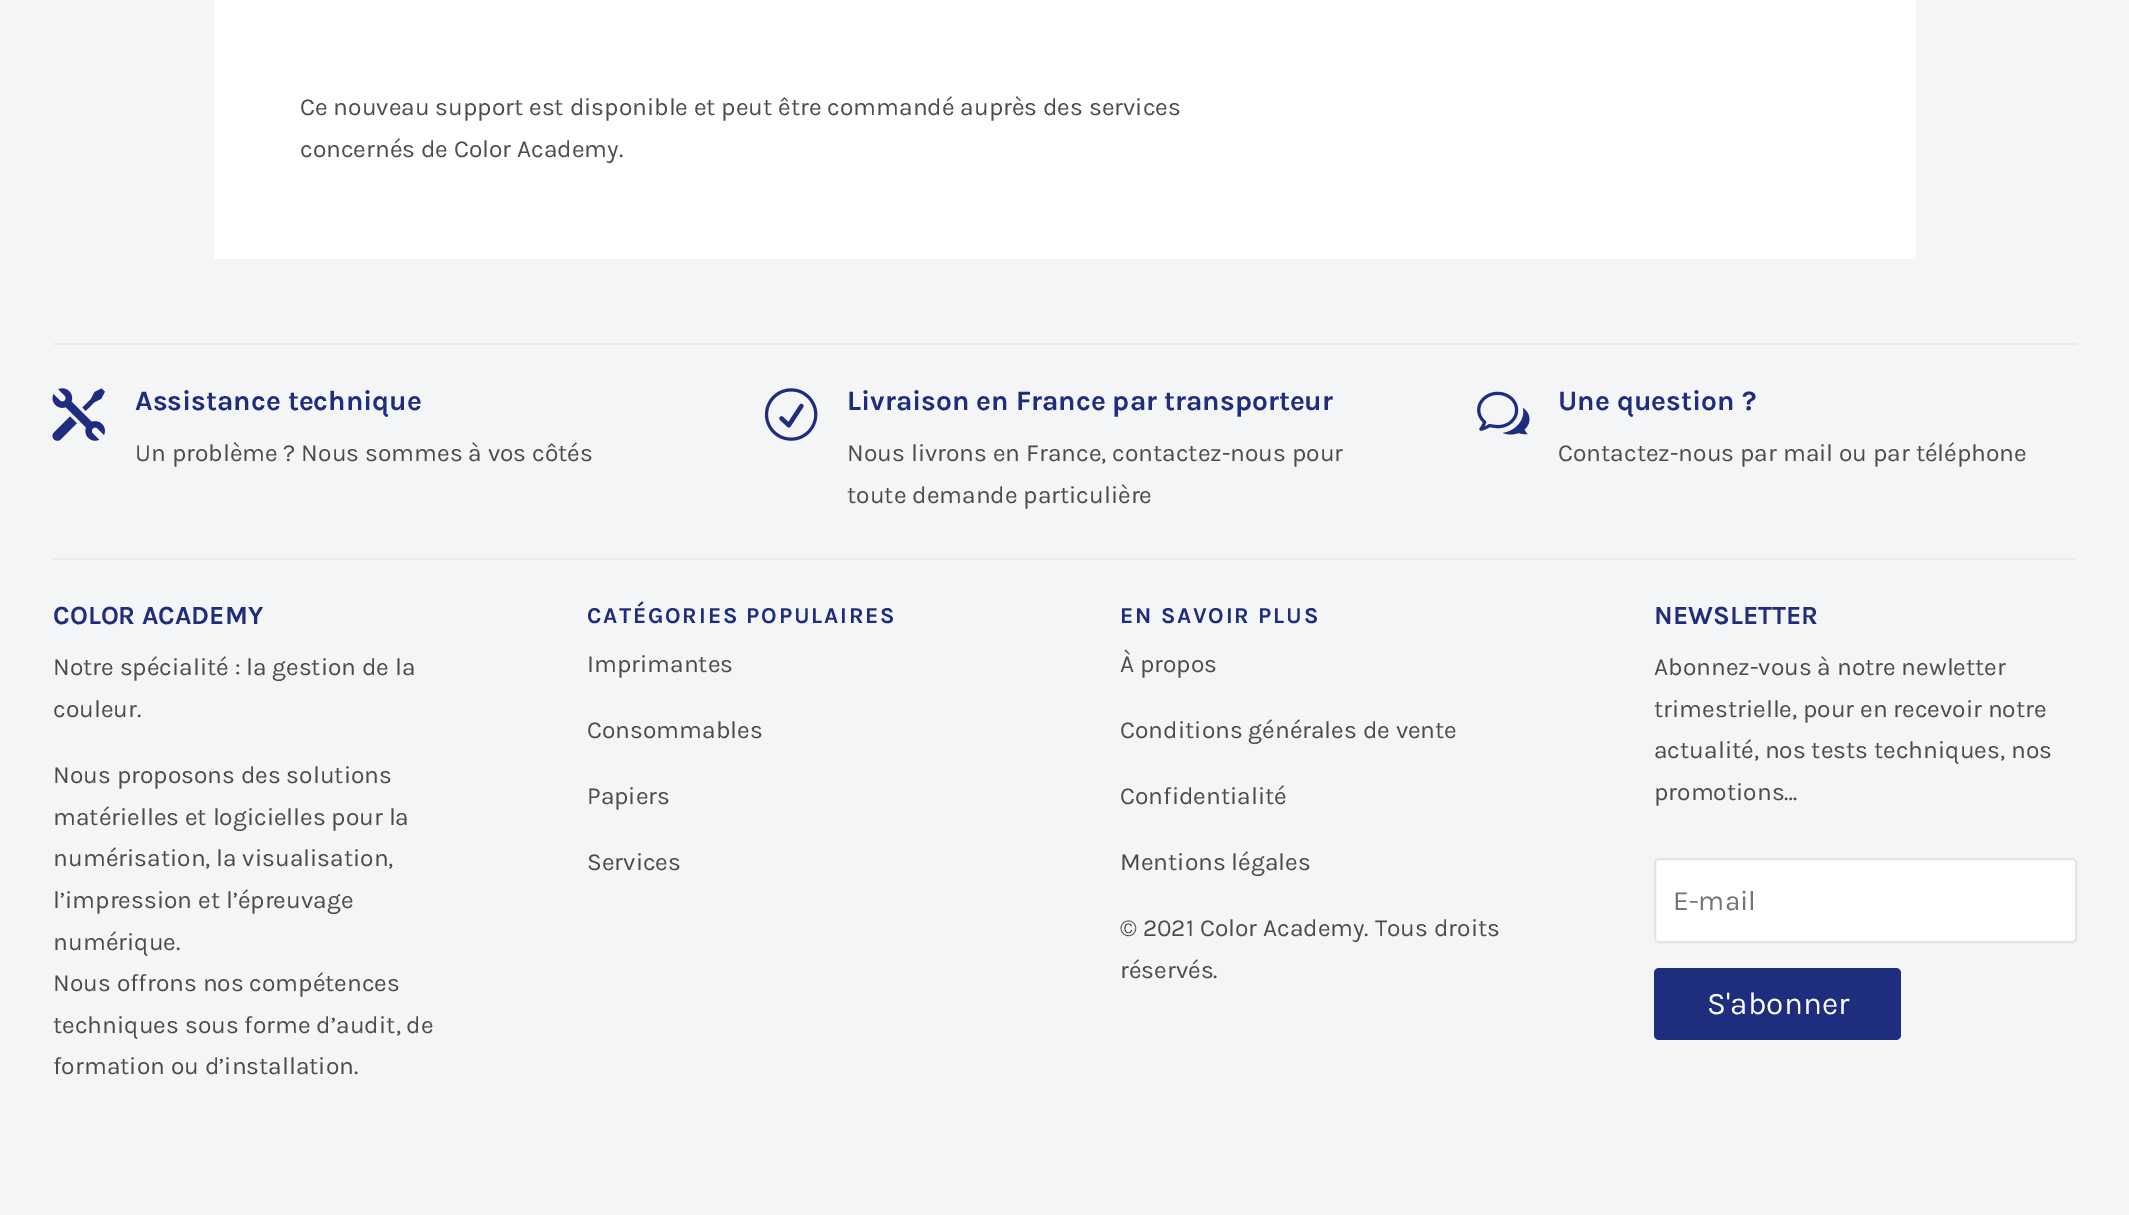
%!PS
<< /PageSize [2129 1215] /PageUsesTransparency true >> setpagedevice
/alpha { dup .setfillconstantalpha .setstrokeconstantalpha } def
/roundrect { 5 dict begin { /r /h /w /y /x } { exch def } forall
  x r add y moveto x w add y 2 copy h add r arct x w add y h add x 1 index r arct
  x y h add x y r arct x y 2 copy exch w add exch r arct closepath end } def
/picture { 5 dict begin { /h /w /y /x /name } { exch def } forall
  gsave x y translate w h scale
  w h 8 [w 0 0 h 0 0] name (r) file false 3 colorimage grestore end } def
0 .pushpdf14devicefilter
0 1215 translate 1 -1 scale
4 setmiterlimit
0.953 0.961 0.969 setrgbcolor
0 0 2129 1215 rectfill
1 setgray
214 0 1702 259 rectfill
/Karla-Regular [24.5 0 0 -24.5 0 0] selectfont
0.298 setgray
300 115 moveto (Ce nouveau support est disponible et peut être commandé auprès des services) show
300 157 moveto (concernés de Color Academy.) show
0.918 setgray
53 343 2024 2 rectfill
53 558 2024 2 rectfill
(img1.rgb) 52 388 53 53 picture
/Karla-Bold [28 0 0 -28 0 0] selectfont
0.118 0.176 0.49 setrgbcolor
135 410 moveto (Assistance technique) show
/Karla-Regular [24.5 0 0 -24.5 0 0] selectfont
0.298 setgray
135 461 moveto (Un problème ? Nous sommes à vos côtés) show
(img2.rgb) 764 388 54 53 picture
/Karla-Bold [28 0 0 -28 0 0] selectfont
0.118 0.176 0.49 setrgbcolor
847 410 moveto (Livraison en France par transporteur) show
/Karla-Regular [24.5 0 0 -24.5 0 0] selectfont
0.298 setgray
847 461 moveto (Nous livrons en France, contactez-nous pour) show
847 503 moveto (toute demande particulière) show
(img3.rgb) 1477 391 53 44 picture
/Karla-Bold [28 0 0 -28 0 0] selectfont
0.118 0.176 0.49 setrgbcolor
1558 410 moveto (Une question ?) show
/Karla-Regular [24.5 0 0 -24.5 0 0] selectfont
0.298 setgray
1558 461 moveto (Contactez-nous par mail ou par téléphone) show
/Karla-Bold [26.25 0 0 -26.25 0 0] selectfont
0.118 0.176 0.49 setrgbcolor
53 624 moveto (COLOR ACADEMY) show
/Karla-Regular [24.5 0 0 -24.5 0 0] selectfont
0.298 setgray
53 675 moveto (Notre spécialité : la gestion de la) show
53 717 moveto (couleur.) show
53 783 moveto (Nous proposons des solutions) show
53 825 moveto (matérielles et logicielles pour la) show
53 866 moveto (numérisation, la visualisation,) show
53 908 moveto (l’impression et l’épreuvage) show
53 950 moveto (numérique.) show
53 991 moveto (Nous offrons nos compétences) show
53 1033 moveto (techniques sous forme d’audit, de) show
53 1074 moveto (formation ou d’installation.) show
/Karla-Bold [22.75 0 0 -22.75 0 0] selectfont
0.118 0.176 0.49 setrgbcolor
587 623 moveto 1.75 0 (CATÉGORIES POPULAIRES) ashow
/Karla-Regular [24.5 0 0 -24.5 0 0] selectfont
0.298 setgray
587 672 moveto (Imprimantes) show
587 738 moveto (Consommables) show
587 804 moveto (Papiers) show
587 870 moveto (Services) show
/Karla-Bold [22.75 0 0 -22.75 0 0] selectfont
0.118 0.176 0.49 setrgbcolor
1120 623 moveto 1.75 0 (EN SAVOIR PLUS) ashow
/Karla-Regular [24.5 0 0 -24.5 0 0] selectfont
0.298 setgray
1120 672 moveto (À propos) show
1120 738 moveto (Conditions générales de vente) show
1120 804 moveto (Confidentialité) show
1120 870 moveto (Mentions légales) show
1120 936 moveto (© 2021 Color Academy. Tous droits) show
1120 978 moveto (réservés.) show
/Karla-Bold [26.25 0 0 -26.25 0 0] selectfont
0.118 0.176 0.49 setrgbcolor
1654 624 moveto (NEWSLETTER) show
/Karla-Regular [24.5 0 0 -24.5 0 0] selectfont
0.298 setgray
1654 675 moveto (Abonnez-vous à notre newletter) show
1654 717 moveto (trimestrielle, pour en recevoir notre) show
1654 758 moveto (actualité, nos tests techniques, nos) show
1654 800 moveto (promotions…) show
1 setgray
1654 858 423 85 5 roundrect fill
0.37 alpha
0.718 setgray
2 setlinewidth
1655 859 421 83 4 roundrect stroke
/Karla-Regular [28 0 0 -28 0 0] selectfont
1 alpha
0.459 setgray
1673 910 moveto (E-mail) show
0.118 0.176 0.49 setrgbcolor
1654 968 247 72 5 roundrect fill
/Karla-Regular [31.5 0 0 -31.5 0 0] selectfont
1 setgray
1707 1014 moveto (S'abonner) show
.poppdf14devicefilter showpage
